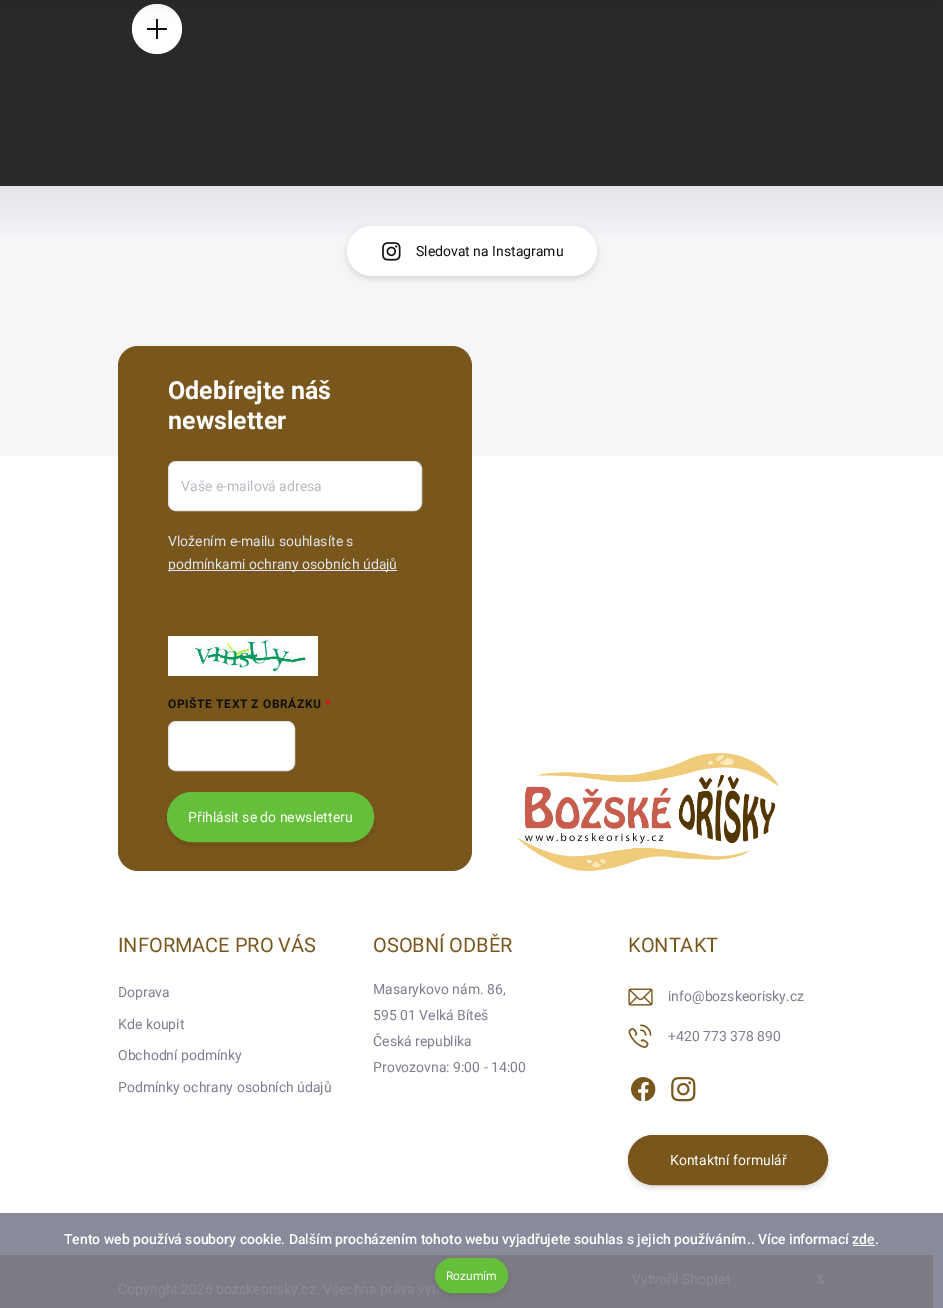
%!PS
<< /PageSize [943 1308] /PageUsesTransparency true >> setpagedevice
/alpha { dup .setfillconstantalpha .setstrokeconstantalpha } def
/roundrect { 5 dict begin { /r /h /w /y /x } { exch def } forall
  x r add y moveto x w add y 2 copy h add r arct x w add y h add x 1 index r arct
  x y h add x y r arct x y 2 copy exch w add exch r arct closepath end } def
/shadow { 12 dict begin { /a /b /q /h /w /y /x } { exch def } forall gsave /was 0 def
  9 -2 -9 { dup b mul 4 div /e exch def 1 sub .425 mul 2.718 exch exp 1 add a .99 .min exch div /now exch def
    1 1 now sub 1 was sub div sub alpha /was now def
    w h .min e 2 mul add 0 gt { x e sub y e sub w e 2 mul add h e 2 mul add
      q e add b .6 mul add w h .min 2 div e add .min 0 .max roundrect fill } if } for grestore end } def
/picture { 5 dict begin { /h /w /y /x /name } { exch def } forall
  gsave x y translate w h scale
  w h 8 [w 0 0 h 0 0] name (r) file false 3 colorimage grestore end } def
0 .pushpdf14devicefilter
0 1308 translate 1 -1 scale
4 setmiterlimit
0.961 0.965 0.973 setrgbcolor
0 0 943 1308 rectfill
0.161 setgray
0 0 943 186 rectfill
1 setgray
newpath 157 29 25 0 360 arc closepath fill
0.059 setgray
156 19 2 20 rectfill
0 setgray
0 -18 943 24 0 6 0.08 shadow
0.059 setgray
147 28 20 2 rectfill
gsave newpath 0 186 moveto 943 186 lineto 943 237 lineto 0 237 lineto closepath clip newpath
<< /ShadingType 2 /ColorSpace /DeviceRGB /Coords [472 246 472 186] /Extend [true true] /Function << /FunctionType 2 /Domain [0 1] /C0 [0.961 0.965 0.973] /C1 [0.894 0.898 0.914] /N 1 >> >> shfill grestore
0 setgray
347 229 250 50 25 3 0.12 shadow
1 setgray
347 226 250 50 25 roundrect fill
(img1.rgb) 382 242 19 19 picture
/Roboto-Regular [14 0 0 -14 0 0] selectfont
0.059 setgray
416 256 moveto (Sledovat na Instagramu) show
1 setgray
0 456 943 757 rectfill
0.537 0.545 0.604 setrgbcolor
0 1213 943 95 rectfill
0.475 0.337 0.106 setrgbcolor
118 346 354 525 20 roundrect fill
/Roboto-Bold [25 0 0 -25 0 0] selectfont
1 setgray
168 399 moveto (Odebírejte náš) show
168 429 moveto (newsletter) show
168.5 461.5 253 49 7.5 roundrect gsave fill grestore
0.878 0.898 0.933 setrgbcolor
stroke
/Roboto-Regular [14 0 0 -14 0 0] selectfont
0.725 0.729 0.769 setrgbcolor
181 491 moveto (Vaše e-mailová adresa) show
0.878 0.898 0.933 setrgbcolor
168 546 moveto (Vložením e-mailu souhlasíte s) show
168 570 229 1 rectfill
168 569 moveto (podmínkami ochrany osobních údajů) show
(img2.rgb) 168 636 150 40 picture
/Roboto-Bold [12 0 0 -12 0 0] selectfont
0.059 setgray
168 708 moveto 0.6 0 (OPIŠTE TEXT Z OBRÁZKU) ashow
0.973 0.004 0.125 setrgbcolor
325 708 moveto 0.6 0 (*) ashow
1 setgray
168.5 721.5 126 49 7.5 roundrect gsave fill grestore
0.878 0.898 0.933 setrgbcolor
stroke
0 setgray
167 795 207 50 25 3 0.12 shadow
0.4 0.749 0.227 setrgbcolor
167.5 792.5 206 49 24.5 roundrect gsave fill grestore
stroke
/Roboto-Regular [14 0 0 -14 0 0] selectfont
1 setgray
188 822 moveto (Přihlásit se do newsletteru) show
(img3.rgb) 518 753 260 118 picture
/Roboto-Regular [20 0 0 -20 0 0] selectfont
0.475 0.337 0.106 setrgbcolor
118 952 moveto (INFORMACE PRO VÁS) show
/Roboto-Regular [14 0 0 -14 0 0] selectfont
0.486 0.494 0.561 setrgbcolor
118 997 moveto (Doprava) show
118 1029 moveto (Kde koupit) show
118 1060 moveto (Obchodní podmínky) show
118 1092 moveto (Podmínky ochrany osobních údajů) show
/Roboto-Regular [20 0 0 -20 0 0] selectfont
0.475 0.337 0.106 setrgbcolor
373 952 moveto (OSOBNÍ ODBĚR) show
/Roboto-Regular [14 0 0 -14 0 0] selectfont
0.486 0.494 0.561 setrgbcolor
373 994 moveto (Masarykovo nám. 86,) show
373 1020 moveto (595 01 Velká Bíteš) show
373 1046 moveto (Česká republika) show
373 1072 moveto (Provozovna: 9:00 - 14:00) show
/Roboto-Regular [20 0 0 -20 0 0] selectfont
0.475 0.337 0.106 setrgbcolor
628 952 moveto (KONTAKT) show
(img4.rgb) 628 988 25 18 picture
/Roboto-Regular [14 0 0 -14 0 0] selectfont
0.486 0.494 0.561 setrgbcolor
668 1001 moveto (info@bozskeorisky.cz) show
(img5.rgb) 628 1024 24 24 picture
668 1041 moveto (+420 773 378 890) show
(img6.rgb) 631 1077 25 25 picture
(img7.rgb) 671 1077 25 25 picture
0 setgray
628 1138 200 50 25 3 0.12 shadow
0.475 0.337 0.106 setrgbcolor
628.5 1135.5 199 49 24.5 roundrect gsave fill grestore
stroke
1 setgray
670 1165 moveto (Kontaktní formulář) show
0.486 0.478 0.514 setrgbcolor
0 1255 933 53 rectfill
0.537 0.545 0.604 setrgbcolor
632 1284 moveto (Vytvořil Shoptet) show
816 1284 moveto (&) show
118 1294 moveto (Copyright 2026 bozskeorisky.cz. Všechna práva vyh) show
/Roboto-Medium [14 0 0 -14 0 0] selectfont
1 setgray
64 1244 moveto (Tento web používá soubory cookie. Dalším procházením tohoto webu vyjadřujete souhlas s jejich používáním.. Více informací zde.) show
853 1245 22 1 rectfill
0 setgray
435 1261 73 35 17.5 3 0.12 shadow
0.4 0.749 0.227 setrgbcolor
435.5 1258.5 72 34 17 roundrect gsave fill grestore
stroke
/Roboto-Regular [12 0 0 -12 0 0] selectfont
1 setgray
446 1280 moveto (Rozumím) show
.poppdf14devicefilter showpage
